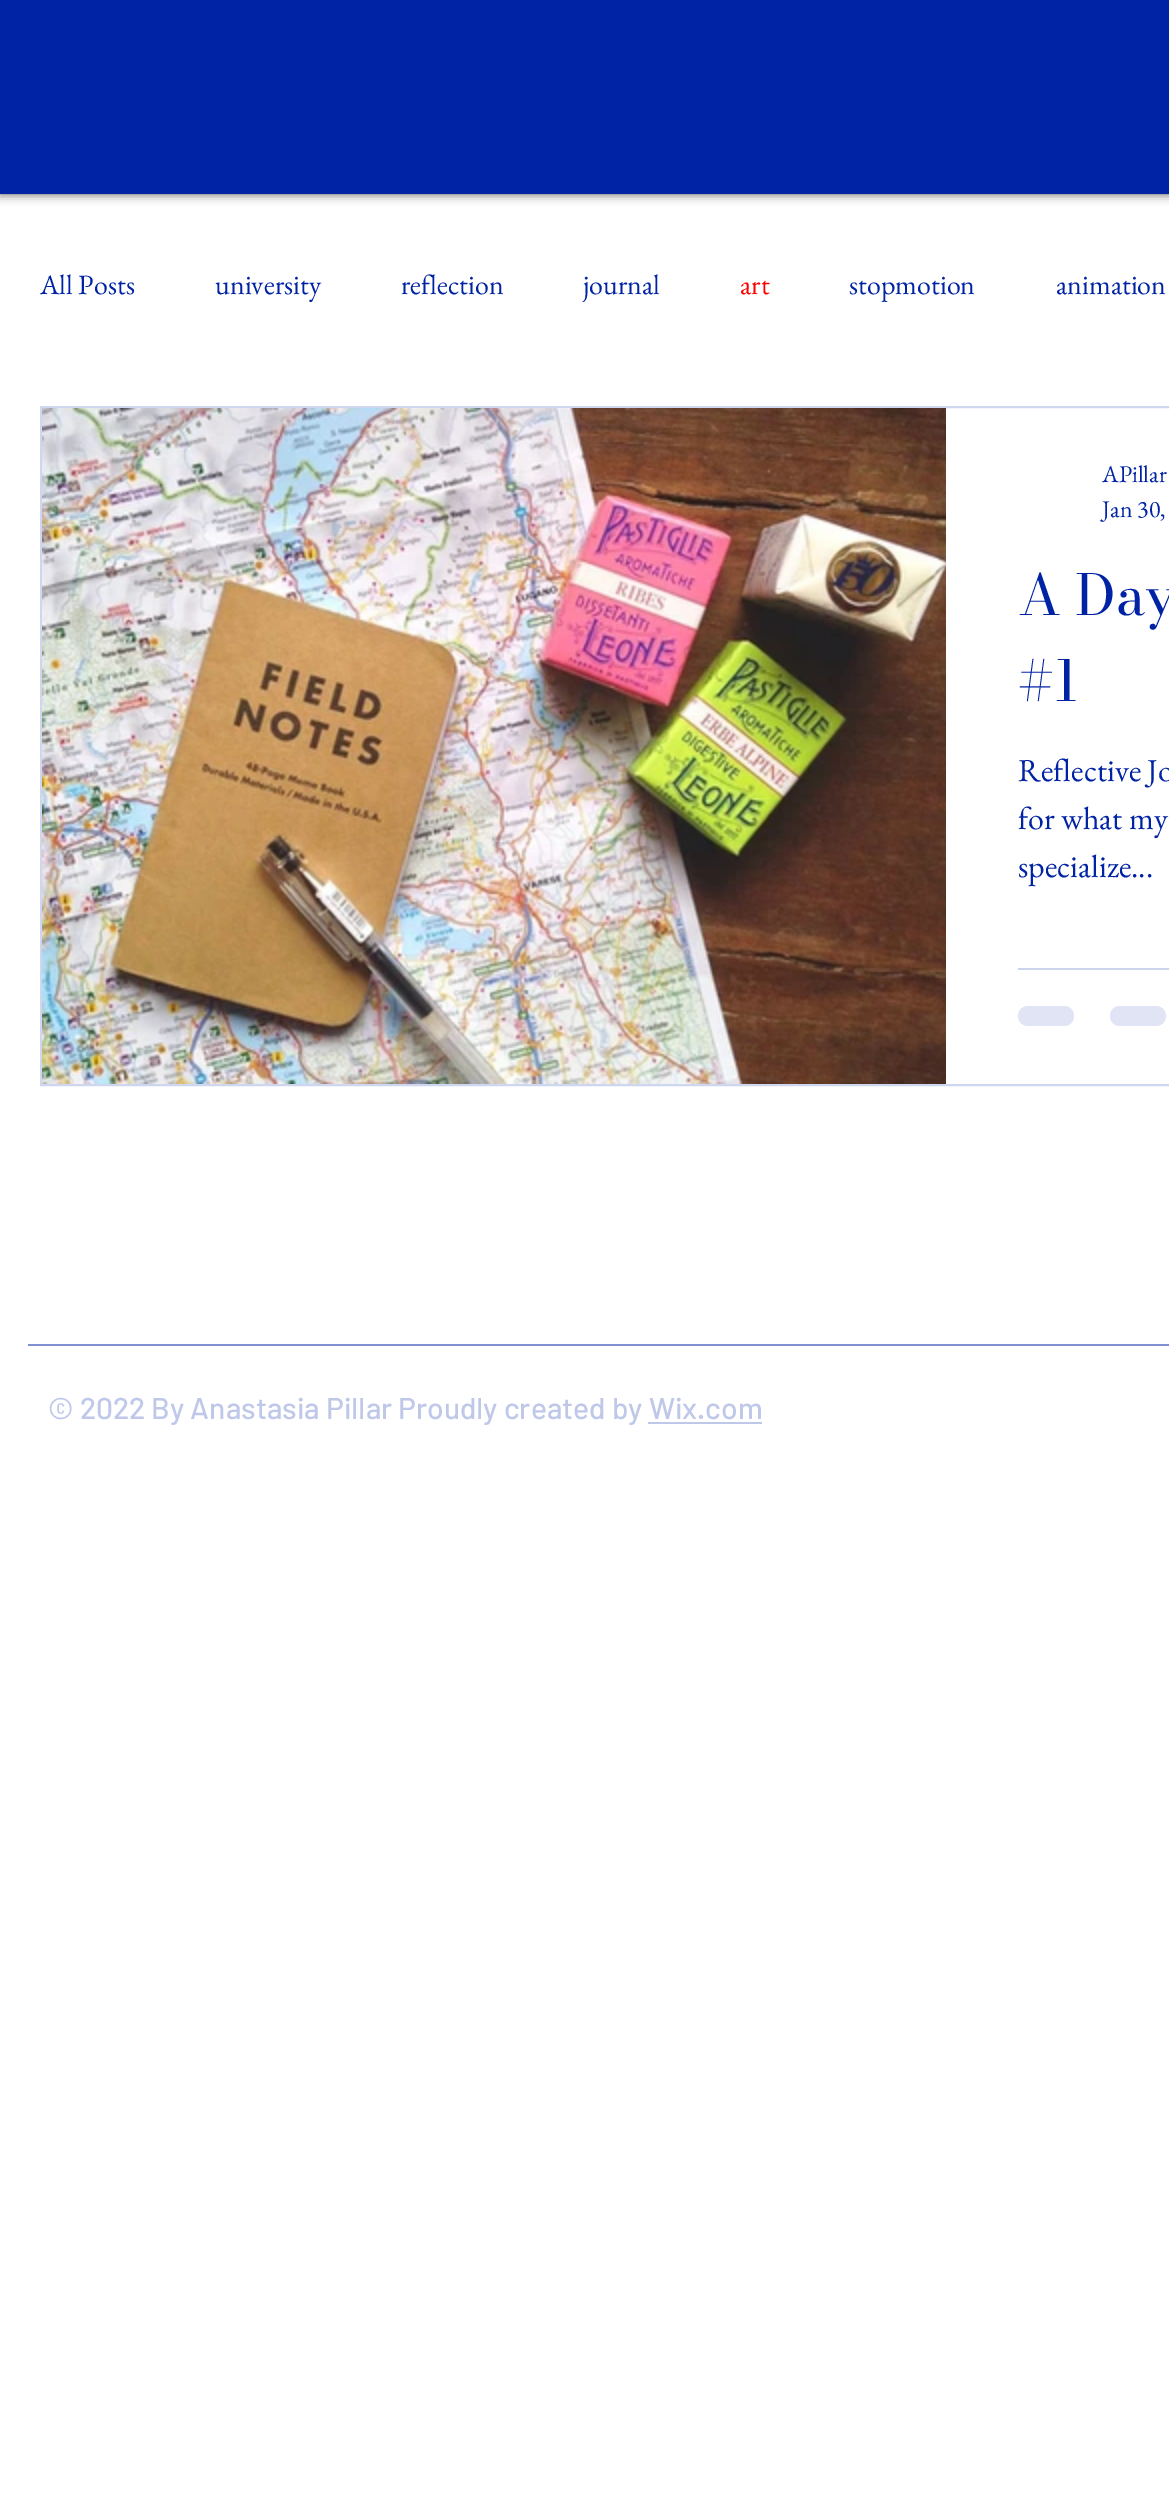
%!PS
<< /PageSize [1169 2514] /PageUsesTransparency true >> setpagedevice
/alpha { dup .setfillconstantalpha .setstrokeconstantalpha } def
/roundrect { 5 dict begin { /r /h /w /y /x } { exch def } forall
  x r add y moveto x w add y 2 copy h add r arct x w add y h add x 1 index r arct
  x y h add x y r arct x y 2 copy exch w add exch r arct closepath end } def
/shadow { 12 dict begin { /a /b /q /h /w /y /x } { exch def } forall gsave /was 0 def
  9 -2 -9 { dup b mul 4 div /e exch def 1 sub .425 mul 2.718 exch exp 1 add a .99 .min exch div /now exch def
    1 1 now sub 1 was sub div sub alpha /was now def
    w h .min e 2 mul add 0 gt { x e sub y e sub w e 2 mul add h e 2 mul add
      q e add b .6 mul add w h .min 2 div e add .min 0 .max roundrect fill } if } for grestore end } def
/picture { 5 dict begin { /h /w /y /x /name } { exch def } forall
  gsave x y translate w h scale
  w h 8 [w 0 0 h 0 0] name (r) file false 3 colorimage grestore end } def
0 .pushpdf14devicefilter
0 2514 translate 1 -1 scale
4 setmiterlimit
1 setgray
0 0 1169 2514 rectfill
0 setgray
0 0 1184 194 0 5 0.7 shadow
0 0.133 0.647 setrgbcolor
0 0 1169 194 rectfill
/EBGaramond-Regular [28 0 0 -28 0 0] selectfont
40 294 moveto (All Posts) show
215 294 moveto (university) show
401 294 moveto (reflection) show
583 294 moveto (journal) show
1 0 0 setrgbcolor
740 294 moveto (art) show
0 0.133 0.647 setrgbcolor
849 294 moveto (stopmotion) show
1056 294 moveto (animation) show
0.812 0.839 0.937 setrgbcolor
2 setlinewidth
41 407 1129 678 rectstroke
(img1.rgb) 42 408 904 676 picture
/EBGaramond-Regular [24 0 0 -24 0 0] selectfont
0 0.133 0.647 setrgbcolor
1102 482 moveto (APillar) show
1102 517 moveto (Jan 30,) show
/BodoniModa-Regular [56 0 0 -56 0 0] selectfont
1018 615 moveto (A Day) show
1018 701 moveto (#1) show
/EBGaramond-Regular [32 0 0 -32 0 0] selectfont
1018 781 moveto (Reflective Jo) show
1018 829 moveto (for what my) show
1018 877 moveto (specialize...) show
0.8 0.827 0.929 setrgbcolor
1018 968 151 2 rectfill
0.878 0.894 0.957 setrgbcolor
1018 1006 56 20 10 roundrect fill
1110 1006 56 20 10 roundrect fill
0.502 0.569 0.824 setrgbcolor
28 1344 1141 2 rectfill
/Barlow-Medium [30 0 0 -30 0 0] selectfont
0.749 0.784 0.914 setrgbcolor
48 1419 moveto (© 2022 By Anastasia Pillar Proudly created by Wix.com) show
648 1422 114 2 rectfill
.poppdf14devicefilter showpage
